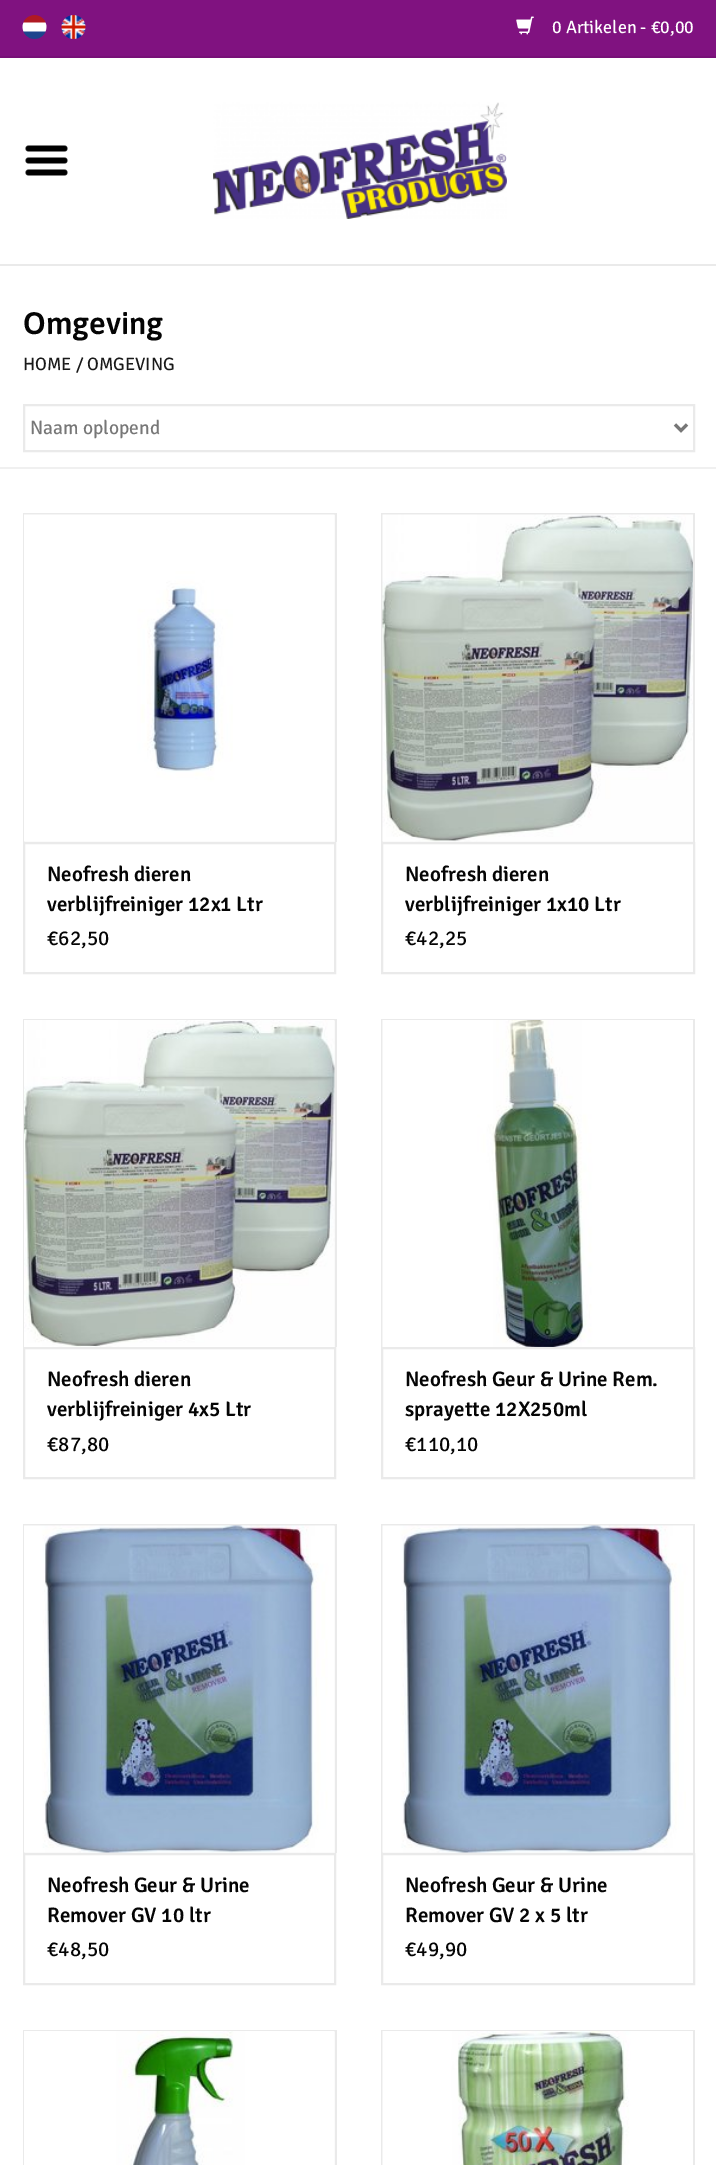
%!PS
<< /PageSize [716 2165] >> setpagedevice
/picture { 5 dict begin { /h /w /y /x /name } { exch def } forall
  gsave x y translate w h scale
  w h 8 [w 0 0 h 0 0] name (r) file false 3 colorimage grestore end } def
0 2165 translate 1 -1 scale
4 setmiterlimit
1 setgray
0 0 716 2165 rectfill
0.502 0.071 0.502 setrgbcolor
0 0 716 56 rectfill
0.467 0.063 0.467 setrgbcolor
0 56 716 2 rectfill
(img1.rgb) 22 15 25 24 picture
(img2.rgb) 61 15 25 24 picture
(img3.rgb) 516 16 18 19 picture
/SignikaNegative-Regular [18 0 0 -18 0 0] selectfont
1 setgray
552 33 moveto (0 Artikelen - €0,00) show
0.918 setgray
0 264 716 2 rectfill
(img4.rgb) 213 102 294 117 picture
(img5.rgb) 25 145 43 31 picture
/Asap-SemiBold [31 0 0 -31 0 0] selectfont
0.02 setgray
23 334 moveto (Omgeving) show
/SignikaNegative-Regular [18 0 0 -18 0 0] selectfont
0.098 setgray
23 370 moveto (HOME / OMGEVING) show
0.941 setgray
0 467 716 2 rectfill
0.918 setgray
2 setlinewidth
24 405 670 46 rectstroke
0.467 setgray
3 setlinewidth
newpath 675 424.5 moveto 681 430.5 lineto 687 424.5 lineto stroke
/SignikaNegative-Regular [19.5 0 0 -19.5 0 0] selectfont
30 434 moveto (Naam oplopend) show
0.969 setgray
25 515 310 327 rectfill
0.918 setgray
23 513 313 2 rectfill
335 513 2 329 rectfill
23 513 2 329 rectfill
(img6.rgb) 24 514 311 328 picture
2 setlinewidth
24 843 311 130 rectstroke
/SignikaNegative-SemiBold [21 0 0 -21 0 0] selectfont
0.02 setgray
47 881 moveto (Neofresh dieren) show
47 911 moveto (verblijfreiniger 12x1 Ltr) show
/SignikaNegative-Regular [21 0 0 -21 0 0] selectfont
47 945 moveto (€62,50) show
0.969 setgray
383 841 310 1 rectfill
0.918 setgray
381 513 314 2 rectfill
693 513 2 329 rectfill
381 513 2 329 rectfill
(img7.rgb) 382 514 311 328 picture
382 843 312 130 rectstroke
/SignikaNegative-SemiBold [21 0 0 -21 0 0] selectfont
0.02 setgray
405 881 moveto (Neofresh dieren) show
405 911 moveto (verblijfreiniger 1x10 Ltr) show
/SignikaNegative-Regular [21 0 0 -21 0 0] selectfont
405 945 moveto (€42,25) show
0.969 setgray
334 1021 1 326 rectfill
0.918 setgray
23 1019 313 2 rectfill
335 1019 2 328 rectfill
23 1019 2 328 rectfill
(img8.rgb) 24 1020 311 327 picture
24 1348 311 130 rectstroke
/SignikaNegative-SemiBold [21 0 0 -21 0 0] selectfont
0.02 setgray
47 1386 moveto (Neofresh dieren) show
47 1416 moveto (verblijfreiniger 4x5 Ltr) show
/SignikaNegative-Regular [21 0 0 -21 0 0] selectfont
47 1451 moveto (€87,80) show
0.918 setgray
381 1019 314 1 rectfill
693 1019 2 328 rectfill
381 1019 2 328 rectfill
(img9.rgb) 382 1020 311 327 picture
382 1348 312 130 rectstroke
/SignikaNegative-SemiBold [21 0 0 -21 0 0] selectfont
0.02 setgray
405 1386 moveto (Neofresh Geur & Urine Rem.) show
405 1416 moveto (sprayette 12X250ml) show
/SignikaNegative-Regular [21 0 0 -21 0 0] selectfont
405 1451 moveto (€110,10) show
0.969 setgray
25 1526 310 327 rectfill
0.918 setgray
23 1524 313 2 rectfill
335 1524 2 329 rectfill
23 1524 2 329 rectfill
(img10.rgb) 24 1525 311 328 picture
24 1854 311 130 rectstroke
/SignikaNegative-SemiBold [21 0 0 -21 0 0] selectfont
0.02 setgray
47 1892 moveto (Neofresh Geur & Urine) show
47 1922 moveto (Remover GV 10 ltr) show
/SignikaNegative-Regular [21 0 0 -21 0 0] selectfont
47 1956 moveto (€48,50) show
0.969 setgray
383 1852 310 1 rectfill
0.918 setgray
381 1524 314 2 rectfill
693 1524 2 329 rectfill
381 1524 2 329 rectfill
(img11.rgb) 382 1525 311 328 picture
382 1854 312 130 rectstroke
/SignikaNegative-SemiBold [21 0 0 -21 0 0] selectfont
0.02 setgray
405 1892 moveto (Neofresh Geur & Urine) show
405 1922 moveto (Remover GV 2 x 5 ltr) show
/SignikaNegative-Regular [21 0 0 -21 0 0] selectfont
405 1956 moveto (€49,90) show
0.969 setgray
334 2032 1 133 rectfill
0.918 setgray
23 2030 313 2 rectfill
335 2030 2 135 rectfill
23 2030 2 135 rectfill
(img12.rgb) 24 2031 311 134 picture
381 2030 314 1 rectfill
693 2030 2 135 rectfill
381 2030 2 135 rectfill
(img13.rgb) 382 2031 311 134 picture
showpage
